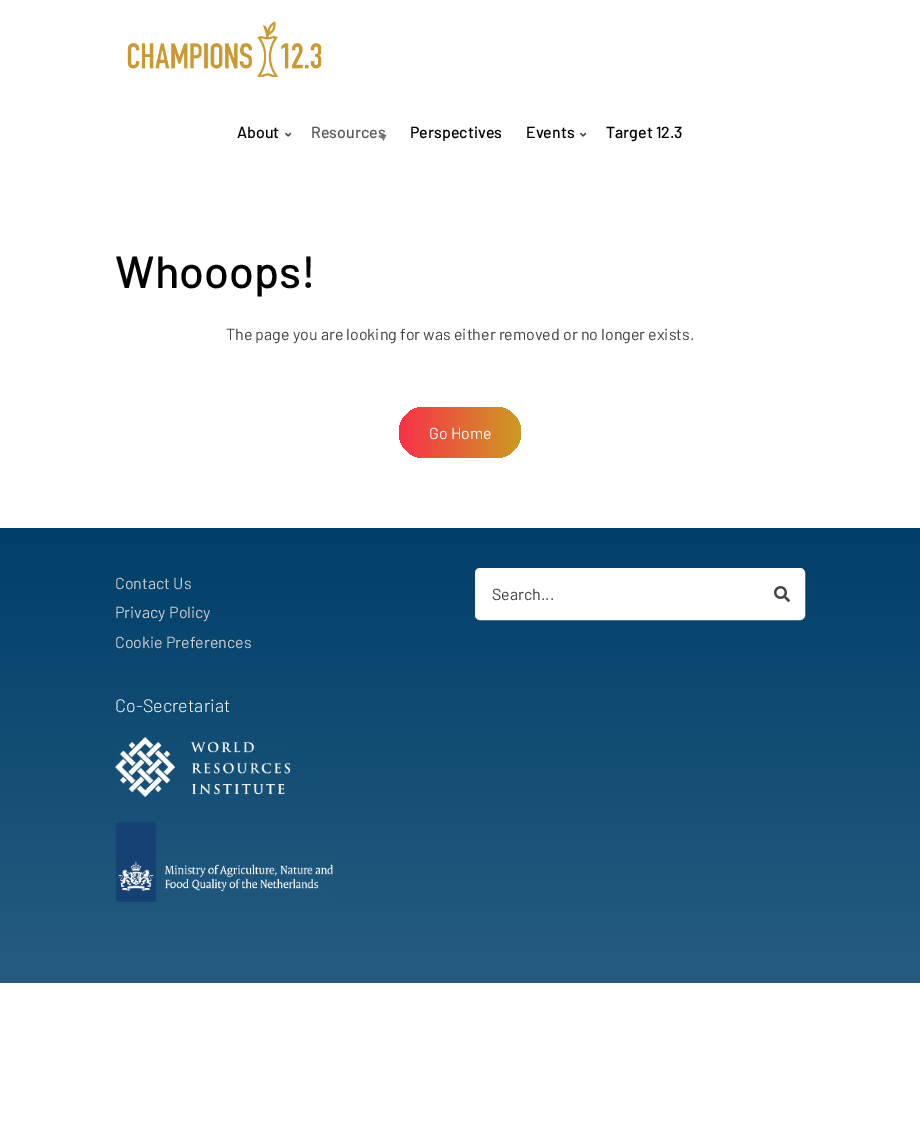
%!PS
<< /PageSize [920 1137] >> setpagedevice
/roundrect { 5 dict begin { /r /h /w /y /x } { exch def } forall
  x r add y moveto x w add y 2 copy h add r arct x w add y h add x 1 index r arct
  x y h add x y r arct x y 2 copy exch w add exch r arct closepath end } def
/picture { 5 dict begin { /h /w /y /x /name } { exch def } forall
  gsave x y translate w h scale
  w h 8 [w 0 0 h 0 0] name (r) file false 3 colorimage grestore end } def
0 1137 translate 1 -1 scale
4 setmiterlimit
1 setgray
0 0 920 1137 rectfill
(img1.rgb) 127 21 195 56 picture
/Barlow-Medium [16 0 0 -16 0 0] selectfont
0 setgray
237 138 moveto (About) show
(img2.rgb) 285 132 7 5 picture
0.341 setgray
311 138 moveto (Resources) show
/LiberationSans-Regular [11 0 0 -11 0 0] selectfont
0.455 setgray
378 141 moveto (▼) show
/Barlow-Medium [16 0 0 -16 0 0] selectfont
0 setgray
410 138 moveto (Perspectives) show
526 138 moveto (Events) show
(img2.rgb) 580 132 7 5 picture
606 138 moveto (Target 12.3) show
/Barlow-Medium [45 0 0 -45 0 0] selectfont
115 288 moveto (Whooops!) show
/Barlow-Regular [16 0 0 -16 0 0] selectfont
0.259 setgray
226 340 moveto (The page you are looking for was either removed or no longer exists.) show
gsave 399 407 122 51 25.5 roundrect clip newpath
<< /ShadingType 2 /ColorSpace /DeviceRGB /Coords [399 433 521 433] /Extend [true true] /Function << /FunctionType 2 /Domain [0 1] /C0 [0.973 0.188 0.29] /C1 [0.804 0.608 0.137] /N 1 >> >> shfill grestore
1 setgray
429 439 moveto (Go Home) show
gsave newpath 0 528 moveto 920 528 lineto 920 983 lineto 0 983 lineto closepath clip newpath
<< /ShadingType 2 /ColorSpace /DeviceRGB /Coords [460 528 460 983] /Extend [true true] /Function << /FunctionType 2 /Domain [0 1] /C0 [0 0.247 0.416] /C1 [0.149 0.361 0.502] /N 1 >> >> shfill grestore
0.8 setgray
115 589 moveto (Contact Us) show
115 618 moveto (Privacy Policy) show
115 648 moveto (Cookie Preferences) show
/Barlow-Light [18 0 0 -18 0 0] selectfont
1 setgray
115 712 moveto (Co-Secretariat) show
(img3.rgb) 115 737 175 60 picture
(img4.rgb) 116 822 217 80 picture
476 569 328 50 4 roundrect gsave fill grestore
2 setlinewidth
stroke
/Barlow-Regular [16 0 0 -16 0 0] selectfont
0.259 setgray
492 600 moveto (Search...) show
(img5.rgb) 774 586 16 16 picture
showpage
